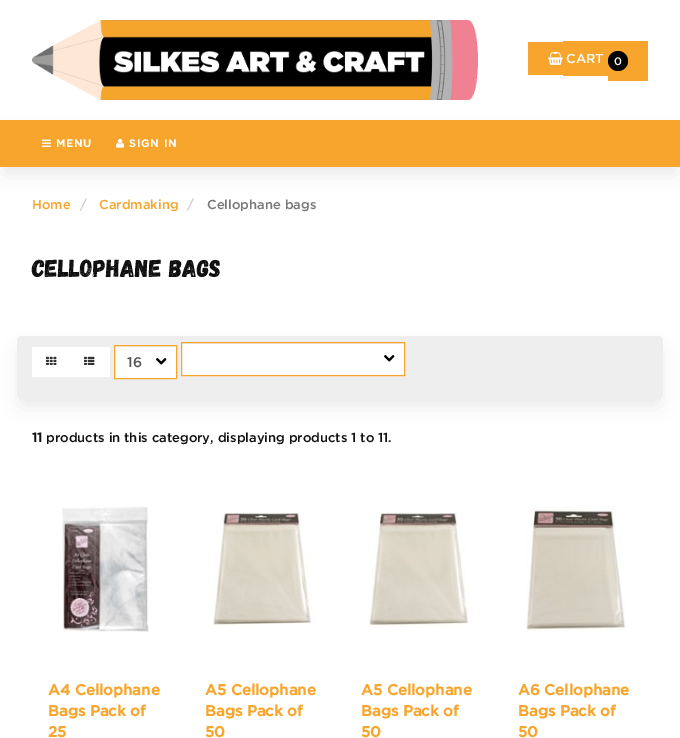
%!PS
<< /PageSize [680 738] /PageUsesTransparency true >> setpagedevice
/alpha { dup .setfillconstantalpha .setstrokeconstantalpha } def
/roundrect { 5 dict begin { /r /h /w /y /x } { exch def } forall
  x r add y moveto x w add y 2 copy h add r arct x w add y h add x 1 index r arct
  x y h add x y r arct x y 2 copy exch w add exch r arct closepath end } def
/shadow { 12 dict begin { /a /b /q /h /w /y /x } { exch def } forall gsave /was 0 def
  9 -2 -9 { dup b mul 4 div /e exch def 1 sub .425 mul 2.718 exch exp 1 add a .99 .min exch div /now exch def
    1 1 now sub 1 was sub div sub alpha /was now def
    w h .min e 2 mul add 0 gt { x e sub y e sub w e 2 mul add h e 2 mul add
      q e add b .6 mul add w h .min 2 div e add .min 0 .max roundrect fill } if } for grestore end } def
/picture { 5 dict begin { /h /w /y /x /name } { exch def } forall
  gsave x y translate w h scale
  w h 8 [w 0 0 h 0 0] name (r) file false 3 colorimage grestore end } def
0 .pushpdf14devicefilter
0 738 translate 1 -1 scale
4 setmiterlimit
1 setgray
0 0 680 738 rectfill
(img1.rgb) 32 20 446 80 picture
0.969 0.647 0.173 setrgbcolor
528 42 35 33 rectfill
563 41 45 35 rectfill
608 41 40 40 rectfill
(img2.rgb) 548 51 15 14 picture
/Gotham-Medium [13 0 0 -13 0 0] selectfont
1 setgray
566 63 moveto (CART) show
0 setgray
newpath 618 61 10 0 360 arc closepath fill
/Gotham-Medium [11 0 0 -11 0 0] selectfont
1 setgray
614 65 moveto (0) show
0 setgray
5 135 670 37 0 10 0.1 shadow
0.969 0.647 0.173 setrgbcolor
0 120 680 47 rectfill
(img3.rgb) 42 139 9 8 picture
/Gotham-Bold [10.5 0 0 -10.5 0 0] selectfont
1 setgray
56 147 moveto 1 0 (MENU) ashow
(img4.rgb) 116 138 9 10 picture
129 147 moveto 1 0 (SIGN IN) ashow
/Gotham-Medium [13 0 0 -13 0 0] selectfont
0.969 0.647 0.173 setrgbcolor
32 209 moveto (Home) show
0.8 setgray
80 209 moveto (/) show
0.969 0.647 0.173 setrgbcolor
99 209 moveto (Cardmaking) show
0.8 setgray
187 209 moveto (/) show
0.467 setgray
207 209 moveto (Cellophane bags) show
/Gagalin-Regular [24.75 0 0 -24.75 0 0] selectfont
0.063 setgray
32 277 moveto (Cellophane bags) show
0 setgray
22 351 636 53 0 10 0.1 shadow
0.933 setgray
17 336 646 63 5 roundrect fill
1 setgray
32 347 78 30 rectfill
(img5.rgb) 46 356 11 9 picture
(img6.rgb) 84 356 11 9 picture
115 347 61 31 rectfill
(img7.rgb) 156 358 11 7 picture
0.969 0.647 0.173 setrgbcolor
114.5 345.5 62 33 rectstroke
/Gotham-Medium [14 0 0 -14 0 0] selectfont
0.333 setgray
127 367 moveto (16) show
1 setgray
182 344 222 31 rectfill
(img7.rgb) 384 355 11 7 picture
0.969 0.647 0.173 setrgbcolor
181.5 342.5 223 33 rectstroke
/Gotham-Bold [13 0 0 -13 0 0] selectfont
0.063 setgray
32 442 moveto (11) show
/Gotham-Medium [13 0 0 -13 0 0] selectfont
46 442 moveto (products in this category, displaying products 1 to 11.) show
(img8.rgb) 62 506 87 126 picture
/Gotham-Bold [15 0 0 -15 0 0] selectfont
0.969 0.647 0.173 setrgbcolor
48 695 moveto (A4 Cellophane) show
48 716 moveto (Bags Pack of) show
48 737 moveto (25) show
(img9.rgb) 213 512 103 114 picture
205 695 moveto (A5 Cellophane) show
205 716 moveto (Bags Pack of) show
205 737 moveto (50) show
(img10.rgb) 369 511 100 116 picture
361 695 moveto (A5 Cellophane) show
361 716 moveto (Bags Pack of) show
361 737 moveto (50) show
(img11.rgb) 526 506 100 125 picture
518 695 moveto (A6 Cellophane) show
518 716 moveto (Bags Pack of) show
518 737 moveto (50) show
.poppdf14devicefilter showpage
